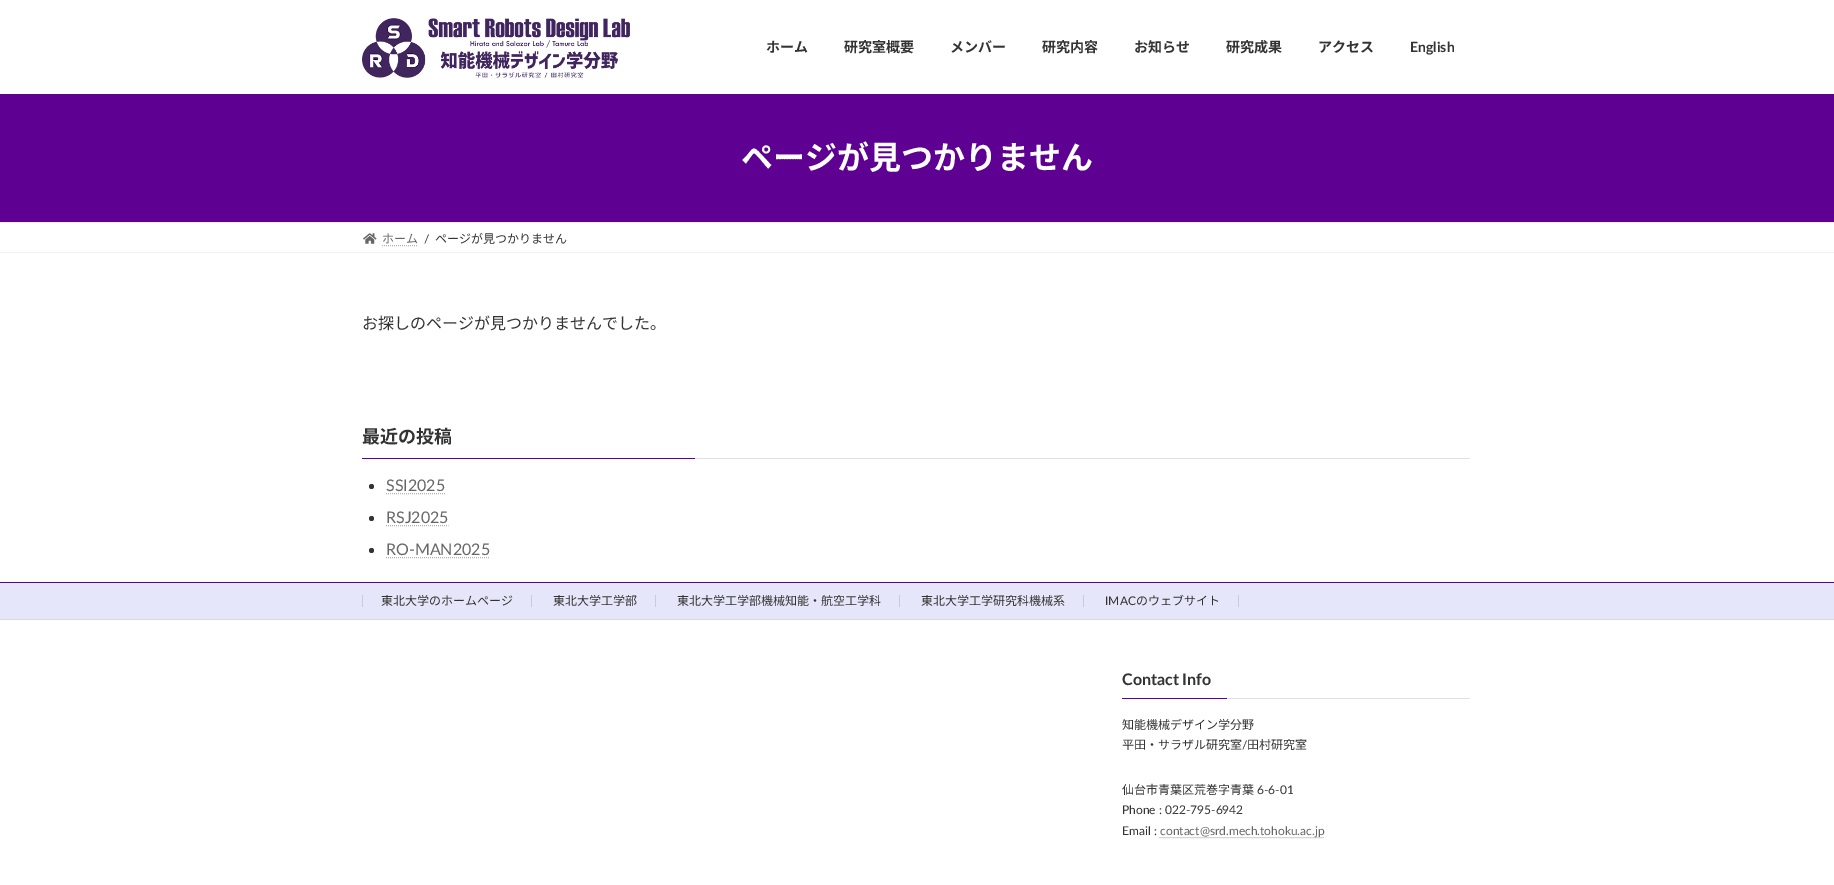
%!PS
<< /PageSize [1834 885] >> setpagedevice
/picture { 5 dict begin { /h /w /y /x /name } { exch def } forall
  gsave x y translate w h scale
  w h 8 [w 0 0 h 0 0] name (r) file false 3 colorimage grestore end } def
0 885 translate 1 -1 scale
4 setmiterlimit
1 setgray
0 0 1834 885 rectfill
(img1.rgb) 362 18 268 60 picture
/NotoSansJP-Bold [14 0 0 -14 0 0] selectfont
0.2 setgray
766 52 moveto (ホーム) show
844 52 moveto (研究室概要) show
950 52 moveto (メンバー) show
1042 52 moveto (研究内容) show
1134 52 moveto (お知らせ) show
1226 52 moveto (研究成果) show
1318 52 moveto (アクセス) show
/Lato-Bold [14 0 0 -14 0 0] selectfont
1410 52 moveto (English) show
0.369 0 0.569 setrgbcolor
0 94 1834 128 rectfill
/NotoSansJP-Bold [32 0 0 -32 0 0] selectfont
1 setgray
741 169 moveto (ページが見つかりません) show
0.941 setgray
0 222 1834 1 rectfill
0 252 1834 1 rectfill
(img2.rgb) 363 233 14 11 picture
/NotoSansJP-Regular [12 0 0 -12 0 0] selectfont
0.4 setgray
382 243 moveto (ホーム) show
0.702 setgray
[1 1] 0 setdash
newpath 382 245.5 moveto 418 245.5 lineto stroke
/Lato-Regular [12 0 0 -12 0 0] selectfont
0.2 setgray
424 243 moveto (/) show
/NotoSansJP-Regular [12 0 0 -12 0 0] selectfont
435 243 moveto (ページが見つかりません) show
/NotoSansJP-Regular [16 0 0 -16 0 0] selectfont
362 329 moveto (お探しのページが見つかりませんでした。) show
0.878 setgray
695 458 775 1 rectfill
/NotoSansJP-Bold [18 0 0 -18 0 0] selectfont
0.2 setgray
362 443 moveto (最近の投稿) show
0.369 0 0.569 setrgbcolor
362 458 333 1 rectfill
0.2 setgray
newpath 371.5 486.5 2.5 0 360 arc closepath fill
/Lato-Regular [16 0 0 -16 0 0] selectfont
0.4 setgray
386 491 moveto (SSI2025) show
0.702 setgray
newpath 386 493.5 moveto 445 493.5 lineto stroke
0.2 setgray
newpath 371.5 518.5 2.5 0 360 arc closepath fill
0.4 setgray
386 523 moveto (RSJ2025) show
0.702 setgray
newpath 386 525.5 moveto 448.5 525.5 lineto stroke
0.2 setgray
newpath 371.5 550.5 2.5 0 360 arc closepath fill
0.4 setgray
386 555 moveto (RO-MAN2025) show
0.702 setgray
newpath 386 557.5 moveto 490 557.5 lineto stroke
0.369 0 0.569 setrgbcolor
0 582 1834 1 rectfill
0.902 0.902 0.98 setrgbcolor
0 583 1834 36 rectfill
0.847 0.847 0.922 setrgbcolor
0 619 1834 1 rectfill
0.792 0.792 0.863 setrgbcolor
531 595 1 12 rectfill
362 595 1 12 rectfill
/NotoSansJP-Regular [12 0 0 -12 0 0] selectfont
0.2 setgray
381 605 moveto (東北大学のホームページ) show
0.792 0.792 0.863 setrgbcolor
655 595 1 12 rectfill
0.2 setgray
553 605 moveto (東北大学工学部) show
0.792 0.792 0.863 setrgbcolor
899 595 1 12 rectfill
0.2 setgray
677 605 moveto (東北大学工学部機械知能・航空工学科) show
0.792 0.792 0.863 setrgbcolor
1083 595 1 12 rectfill
0.2 setgray
921 605 moveto (東北大学工学研究科機械系) show
0.792 0.792 0.863 setrgbcolor
1238 595 1 12 rectfill
/Lato-Regular [12 0 0 -12 0 0] selectfont
0.2 setgray
1105 605 moveto (IMAC) show
/NotoSansJP-Regular [12 0 0 -12 0 0] selectfont
1136 605 moveto (のウェブサイト) show
0.878 setgray
1227 698 243 1 rectfill
/Lato-Bold [16 0 0 -16 0 0] selectfont
0.2 setgray
1122 685 moveto (Contact Info) show
0.369 0 0.569 setrgbcolor
1122 698 105 1 rectfill
/NotoSansJP-Regular [12 0 0 -12 0 0] selectfont
0.2 setgray
1122 729 moveto (知能機械デザイン学分野) show
1122 749 moveto (平田・サラザル研究室) show
/Lato-Regular [12 0 0 -12 0 0] selectfont
1242 749 moveto (/) show
/NotoSansJP-Regular [12 0 0 -12 0 0] selectfont
1247 749 moveto (田村研究室) show
1122 794 moveto (仙台市青葉区荒巻字青葉) show
/Lato-Regular [12 0 0 -12 0 0] selectfont
1257 794 moveto (6-6-01) show
1122 814 moveto (Phone : 022-795-6942) show
1122 835 moveto (Email :) show
0.702 setgray
newpath 1159.5 837.5 moveto 1324 837.5 lineto stroke
0.4 setgray
1160 835 moveto (contact@srd.mech.tohoku.ac.jp) show
showpage
